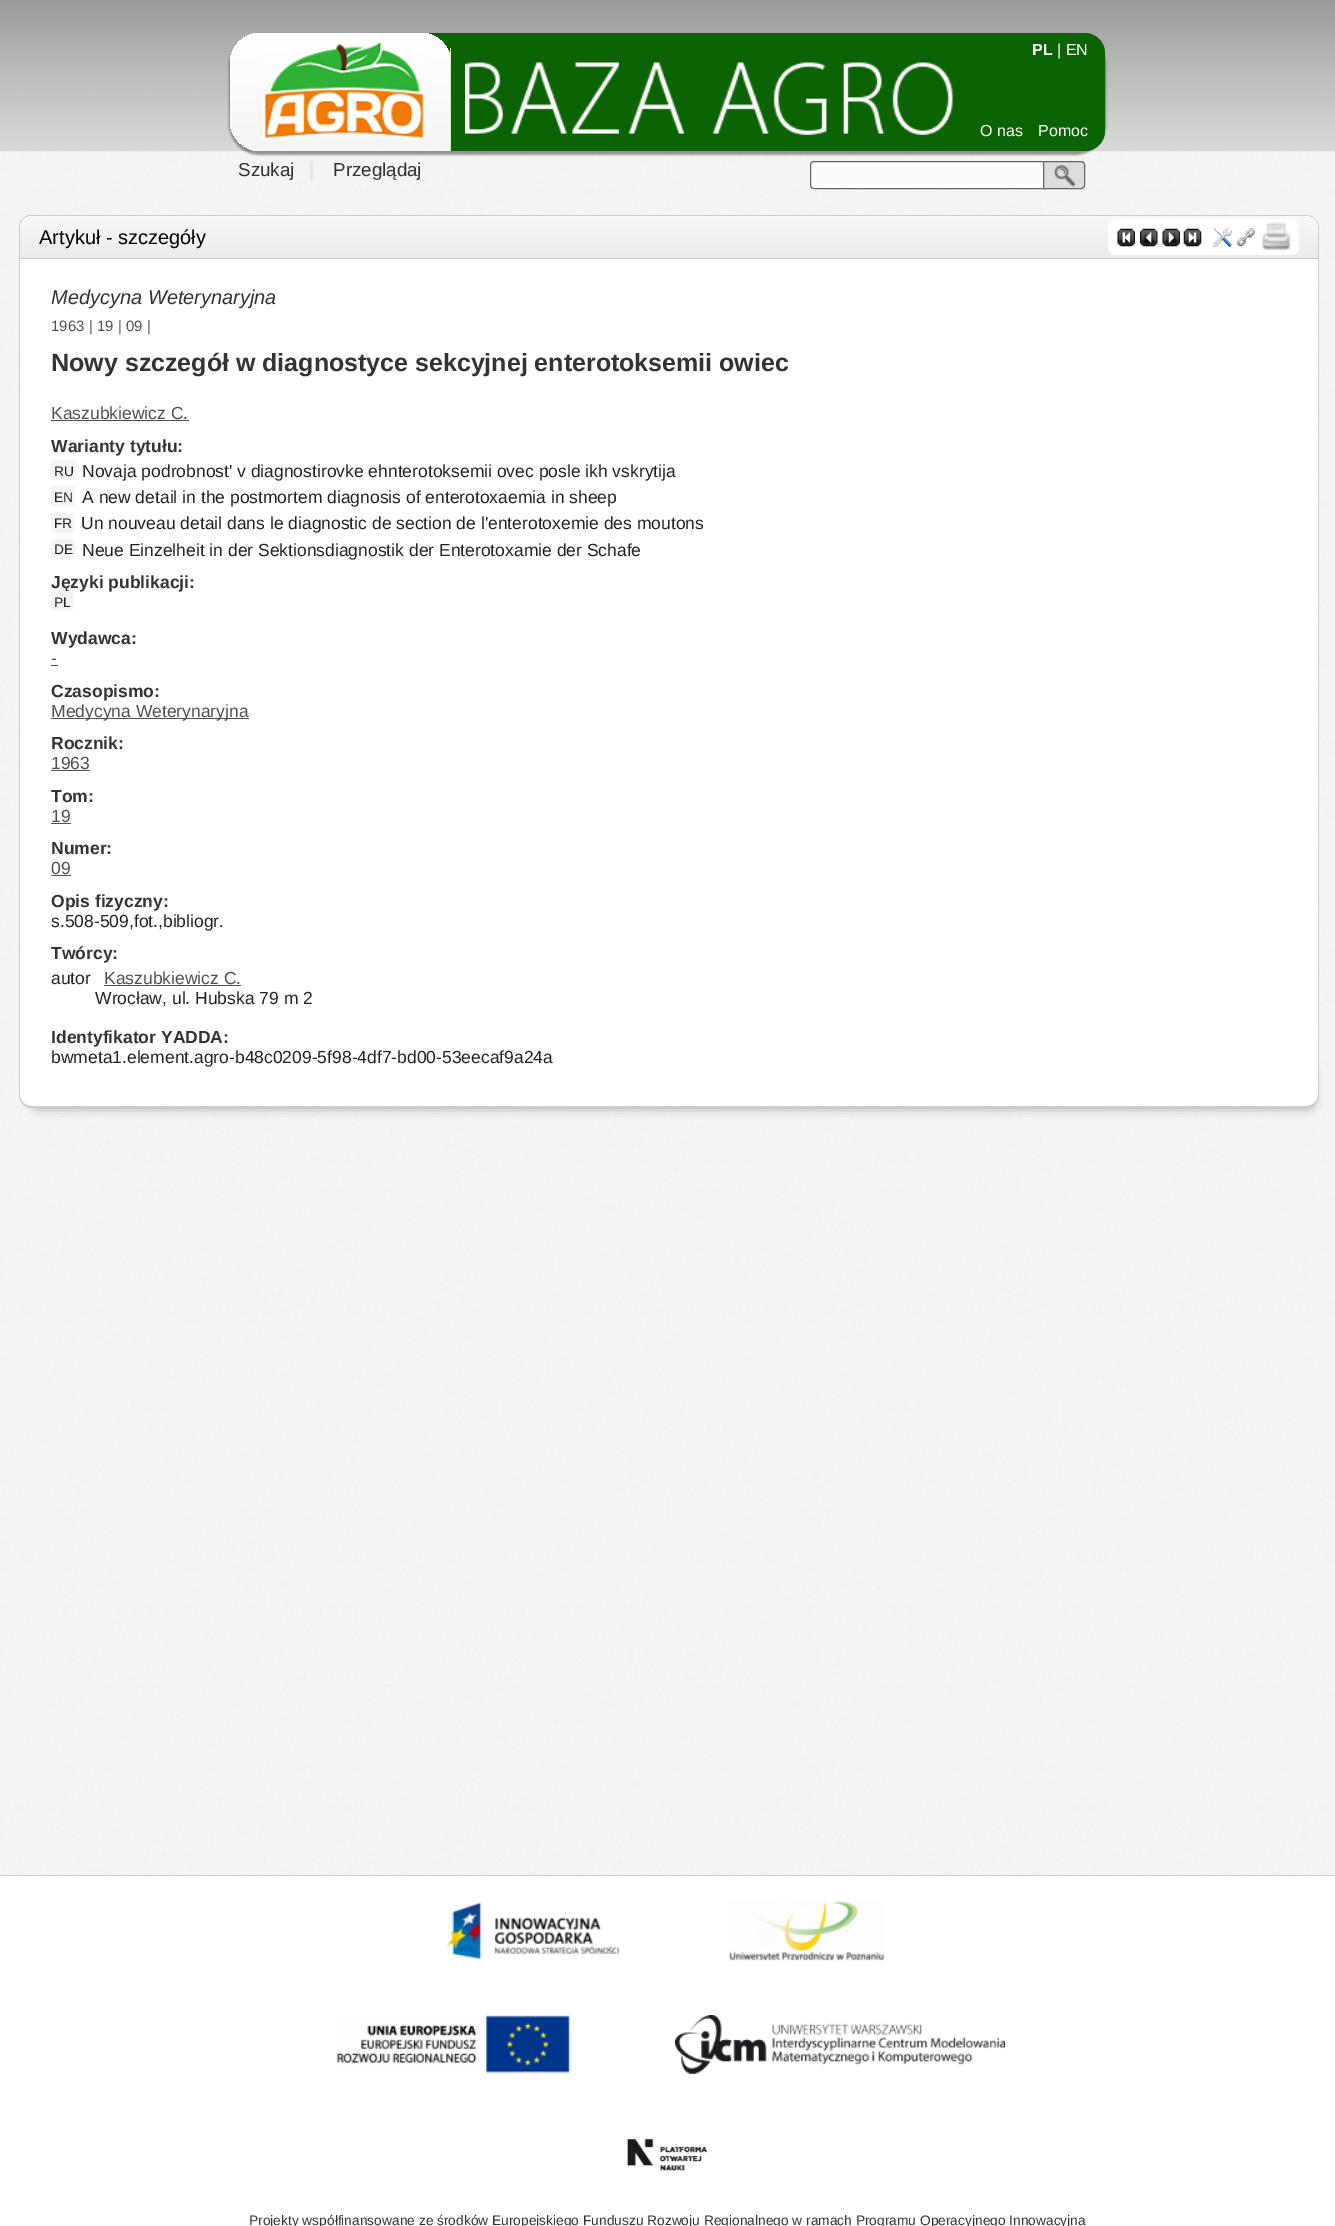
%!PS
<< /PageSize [1335 2226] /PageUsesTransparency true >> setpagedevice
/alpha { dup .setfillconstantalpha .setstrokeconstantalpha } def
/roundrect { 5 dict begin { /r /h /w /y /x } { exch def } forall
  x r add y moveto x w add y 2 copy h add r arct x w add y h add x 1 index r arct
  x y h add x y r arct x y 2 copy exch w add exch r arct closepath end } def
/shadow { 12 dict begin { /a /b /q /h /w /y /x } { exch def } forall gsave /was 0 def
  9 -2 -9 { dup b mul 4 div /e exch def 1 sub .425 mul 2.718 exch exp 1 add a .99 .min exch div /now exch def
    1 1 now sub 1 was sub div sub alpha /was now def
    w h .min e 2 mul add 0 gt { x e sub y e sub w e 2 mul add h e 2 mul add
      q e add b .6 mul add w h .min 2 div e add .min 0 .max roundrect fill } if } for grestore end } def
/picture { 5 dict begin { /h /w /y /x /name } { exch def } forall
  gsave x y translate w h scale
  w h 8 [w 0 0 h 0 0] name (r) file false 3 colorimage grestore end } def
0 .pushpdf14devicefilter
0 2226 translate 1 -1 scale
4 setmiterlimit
1 setgray
0 0 1335 2226 rectfill
(img1.rgb) 0 0 1335 1875 picture
(img4.rgb) 0 151 1335 39 picture
0.196 setgray
229 34 877 121 31 1 0.5 shadow
gsave
newpath 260 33 moveto 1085 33 lineto 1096 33 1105 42 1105 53 curveto 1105 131 lineto 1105 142 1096 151 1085 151 curveto 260 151 lineto 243.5 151 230 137.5 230 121 curveto 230 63 lineto 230 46.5 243.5 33 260 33 curveto closepath clip newpath
229 34 877 121 31 1 0.5 shadow
grestore
0.043 0.388 0.012 setrgbcolor
newpath 260 33 moveto 1085 33 lineto 1096 33 1105 42 1105 53 curveto 1105 131 lineto 1105 142 1096 151 1085 151 curveto 260 151 lineto 243.5 151 230 137.5 230 121 curveto 230 63 lineto 230 46.5 243.5 33 260 33 curveto closepath fill
gsave newpath 260 33 moveto 421 33 lineto 437.5 33 451 46.5 451 63 curveto 451 151 lineto 260 151 lineto 243.5 151 230 137.5 230 121 curveto 230 63 lineto 230 46.5 243.5 33 260 33 curveto closepath clip newpath
<< /ShadingType 2 /ColorSpace /DeviceRGB /Coords [340 32 340 151] /Extend [true true] /Function << /FunctionType 2 /Domain [0 1] /C0 [1 1 1] /C1 [0.965 0.965 0.965] /N 1 >> >> shfill grestore
0.796 0.965 0.702 setrgbcolor
450 48 1 103 rectfill
(img2.rgb) 263 41 162 99 picture
/LiberationSans-Bold [16 0 0 -16 0 0] selectfont
1 setgray
1032 55 moveto (PL) show
/LiberationSans-Regular [16 0 0 -16 0 0] selectfont
1057 55 moveto (| EN) show
(img3.rgb) 465 62 488 73 picture
980 136 moveto (O nas) show
1038 136 moveto (Pomoc) show
/LiberationSans-Regular [18.75 0 0 -18.75 0 0] selectfont
0.2 setgray
238 176 moveto (Szukaj) show
0.392 setgray
311 161 1 19 0 1 0.2 shadow
0.2 setgray
333 176 moveto (Przeglądaj) show
1 setgray
newpath 814 161.5 moveto 1044.5 161.5 lineto 1044.5 188.5 lineto 814 188.5 lineto 812 188.5 810.5 187 810.5 185 curveto 810.5 165 lineto 810.5 163 812 161.5 814 161.5 curveto closepath gsave fill grestore
0.4 setgray
stroke
0.976 setgray
newpath 819 166 moveto 1040 166 lineto 1040 184 lineto 819 184 lineto 817 184 815 182 815 180 curveto 815 170 lineto 815 168 817 166 819 166 curveto closepath fill
0.867 setgray
newpath 1043 161 moveto 1081 161 lineto 1083 161 1085 163 1085 165 curveto 1085 185 lineto 1085 187 1083 189 1081 189 curveto 1043 189 lineto closepath fill
(img5.rgb) 1053 165 22 22 picture
0.4 setgray
newpath 1043.5 161.5 moveto 1081 161.5 lineto 1083 161.5 1084.5 163 1084.5 165 curveto 1084.5 185 lineto 1084.5 187 1083 188.5 1081 188.5 curveto 1043.5 188.5 lineto closepath stroke
0.8 setgray
newpath 31 215 moveto 1306 215 lineto 1313 215 1319 221 1319 228 curveto 1319 259 lineto 19 259 lineto 19 228 lineto 19 221 24 215 31 215 curveto closepath 31 216 moveto 1306 216 lineto 1312 216 1318 221 1318 228 curveto 1318 259 lineto 20 259 lineto 20 228 lineto 20 221 25 216 31 216 curveto closepath eofill
gsave newpath 33 216 moveto 1305 216 lineto 1312 216 1318 222 1318 229 curveto 1318 258 lineto 20 258 lineto 20 229 lineto 20 222 26 216 33 216 curveto closepath clip newpath
<< /ShadingType 2 /ColorSpace /DeviceRGB /Coords [669 216 669 258] /Extend [true true] /Function << /FunctionType 2 /Domain [0 1] /C0 [0.976 0.976 0.976] /C1 [0.922 0.922 0.922] /N 1 >> >> shfill grestore
20 258 1298 1 rectfill
/LiberationSans-Regular [20 0 0 -20 0 0] selectfont
0 setgray
39 244 moveto (Artykuł - szczegóły) show
1 setgray
1108 219 191 36 8 roundrect fill
(img6.rgb) 1117 228 18 19 picture
(img7.rgb) 1140 228 18 19 picture
(img8.rgb) 1162 228 18 19 picture
(img9.rgb) 1183 228 19 19 picture
(img10.rgb) 1212 227 20 21 picture
(img11.rgb) 1237 228 18 19 picture
(img12.rgb) 1262 222 29 29 picture
0 setgray
38 1073 1271 31 0 6 0.8 shadow
1 setgray
newpath 20 259 moveto 1318 259 lineto 1318 1095 lineto 1318 1101 1313 1106 1307 1106 curveto 31 1106 lineto 25 1106 20 1101 20 1095 curveto closepath fill
0.8 setgray
newpath 19 259 moveto 1319 259 lineto 1319 1095 lineto 1319 1102 1313 1108 1306 1108 curveto 31 1108 lineto 24 1108 19 1102 19 1095 curveto closepath 20 259 moveto 1318 259 lineto 1318 1095 lineto 1318 1101 1312 1106 1306 1106 curveto 31 1106 lineto 25 1106 20 1101 20 1095 curveto closepath eofill
/LiberationSans-Italic [20 0 0 -20 0 0] selectfont
0.2 setgray
51 304 moveto (Medycyna Weterynaryjna) show
/LiberationSans-Regular [15 0 0 -15 0 0] selectfont
0.318 0.314 0.314 setrgbcolor
51 331 moveto (1963) show
0.4 setgray
89 331 moveto (|) show
0.318 0.314 0.314 setrgbcolor
97 331 moveto (19) show
0.4 setgray
118 331 moveto (|) show
0.318 0.314 0.314 setrgbcolor
126 331 moveto (09) show
0.4 setgray
147 331 moveto (|) show
/LiberationSans-Bold [25 0 0 -25 0 0] selectfont
0.2 setgray
51 371 moveto (Nowy szczegół w diagnostyce sekcyjnej enterotoksemii owiec) show
/LiberationSans-Regular [17.5 0 0 -17.5 0 0] selectfont
0.318 0.314 0.314 setrgbcolor
51 419 moveto (Kaszubkiewicz C.) show
51 420 138 1 rectfill
/LiberationSans-Bold [17.5 0 0 -17.5 0 0] selectfont
0.2 setgray
51 452 moveto (Warianty tytułu:) show
0.953 0.957 0.969 setrgbcolor
51 460 25 20 2.5 roundrect fill
/LiberationSans-Regular [13.75 0 0 -13.75 0 0] selectfont
0.133 setgray
54 476 moveto (RU) show
/LiberationSans-Regular [17.5 0 0 -17.5 0 0] selectfont
82 477 moveto (Novaja podrobnost' v diagnostirovke ehnterotoksemii ovec posle ikh vskrytija) show
0.953 0.957 0.969 setrgbcolor
51 486 24 20 2.5 roundrect fill
/LiberationSans-Regular [13.75 0 0 -13.75 0 0] selectfont
0.133 setgray
54 502 moveto (EN) show
/LiberationSans-Regular [17.5 0 0 -17.5 0 0] selectfont
82 503 moveto (A new detail in the postmortem diagnosis of enterotoxaemia in sheep) show
0.953 0.957 0.969 setrgbcolor
51 513 24 20 2.5 roundrect fill
/LiberationSans-Regular [13.75 0 0 -13.75 0 0] selectfont
0.133 setgray
54 528 moveto (FR) show
/LiberationSans-Regular [17.5 0 0 -17.5 0 0] selectfont
81 529 moveto (Un nouveau detail dans le diagnostic de section de l'enterotoxemie des moutons) show
0.953 0.957 0.969 setrgbcolor
51 539 24 20 2.5 roundrect fill
/LiberationSans-Regular [13.75 0 0 -13.75 0 0] selectfont
0.133 setgray
54 554 moveto (DE) show
/LiberationSans-Regular [17.5 0 0 -17.5 0 0] selectfont
82 556 moveto (Neue Einzelheit in der Sektionsdiagnostik der Enterotoxamie der Schafe) show
/LiberationSans-Bold [17.5 0 0 -17.5 0 0] selectfont
0.2 setgray
51 588 moveto (Języki publikacji:) show
0.953 0.957 0.969 setrgbcolor
51 591 22 20 2.5 roundrect fill
/LiberationSans-Regular [13.75 0 0 -13.75 0 0] selectfont
0.133 setgray
54 607 moveto (PL) show
/LiberationSans-Bold [17.5 0 0 -17.5 0 0] selectfont
0.2 setgray
51 644 moveto (Wydawca:) show
/LiberationSans-Regular [17.5 0 0 -17.5 0 0] selectfont
0.318 0.314 0.314 setrgbcolor
51 664 moveto (-) show
51 665 7 1 rectfill
/LiberationSans-Bold [17.5 0 0 -17.5 0 0] selectfont
0.2 setgray
51 697 moveto (Czasopismo:) show
0.318 0.314 0.314 setrgbcolor
51 718 198 1 rectfill
/LiberationSans-Regular [17.5 0 0 -17.5 0 0] selectfont
51 717 moveto (Medycyna Weterynaryjna) show
/LiberationSans-Bold [17.5 0 0 -17.5 0 0] selectfont
0.2 setgray
51 749 moveto (Rocznik:) show
/LiberationSans-Regular [17.5 0 0 -17.5 0 0] selectfont
0.318 0.314 0.314 setrgbcolor
51 769 moveto (1963) show
51 770 39 1 rectfill
/LiberationSans-Bold [17.5 0 0 -17.5 0 0] selectfont
0.2 setgray
51 802 moveto (Tom:) show
/LiberationSans-Regular [17.5 0 0 -17.5 0 0] selectfont
0.318 0.314 0.314 setrgbcolor
51 822 moveto (19) show
51 823 20 1 rectfill
/LiberationSans-Bold [17.5 0 0 -17.5 0 0] selectfont
0.2 setgray
51 854 moveto (Numer:) show
/LiberationSans-Regular [17.5 0 0 -17.5 0 0] selectfont
0.318 0.314 0.314 setrgbcolor
51 874 moveto (09) show
51 875 20 1 rectfill
/LiberationSans-Bold [17.5 0 0 -17.5 0 0] selectfont
0.2 setgray
51 907 moveto (Opis fizyczny:) show
/LiberationSans-Regular [17.5 0 0 -17.5 0 0] selectfont
0.133 setgray
51 927 moveto (s.508-509,fot.,bibliogr.) show
/LiberationSans-Bold [17.5 0 0 -17.5 0 0] selectfont
0.2 setgray
51 959 moveto (Twórcy:) show
/LiberationSans-Regular [17.5 0 0 -17.5 0 0] selectfont
0.133 setgray
51 984 moveto (autor) show
0.318 0.314 0.314 setrgbcolor
104 984 moveto (Kaszubkiewicz C.) show
104 985 137 1 rectfill
0.133 setgray
95 1004 moveto (Wrocław, ul. Hubska 79 m 2) show
/LiberationSans-Bold [17.5 0 0 -17.5 0 0] selectfont
0.2 setgray
51 1043 moveto (Identyfikator YADDA:) show
/LiberationSans-Regular [17.5 0 0 -17.5 0 0] selectfont
0.133 setgray
51 1063 moveto (bwmeta1.element.agro-b48c0209-5f98-4df7-bd00-53eecaf9a24a) show
0.8 setgray
0 1875 1335 1 rectfill
(img13.rgb) 446 1902 174 58 picture
(img14.rgb) 728 1901 156 60 picture
(img15.rgb) 336 2015 235 59 picture
(img16.rgb) 675 2015 330 59 picture
(img17.rgb) 627 2138 81 33 picture
/LiberationSans-Regular [13.75 0 0 -13.75 0 0] selectfont
0.2 setgray
249 2225 moveto (Projekty współfinansowane ze środków Europejskiego Funduszu Rozwoju Regionalnego w ramach Programu Operacyjnego Innowacyjna) show
.poppdf14devicefilter showpage
